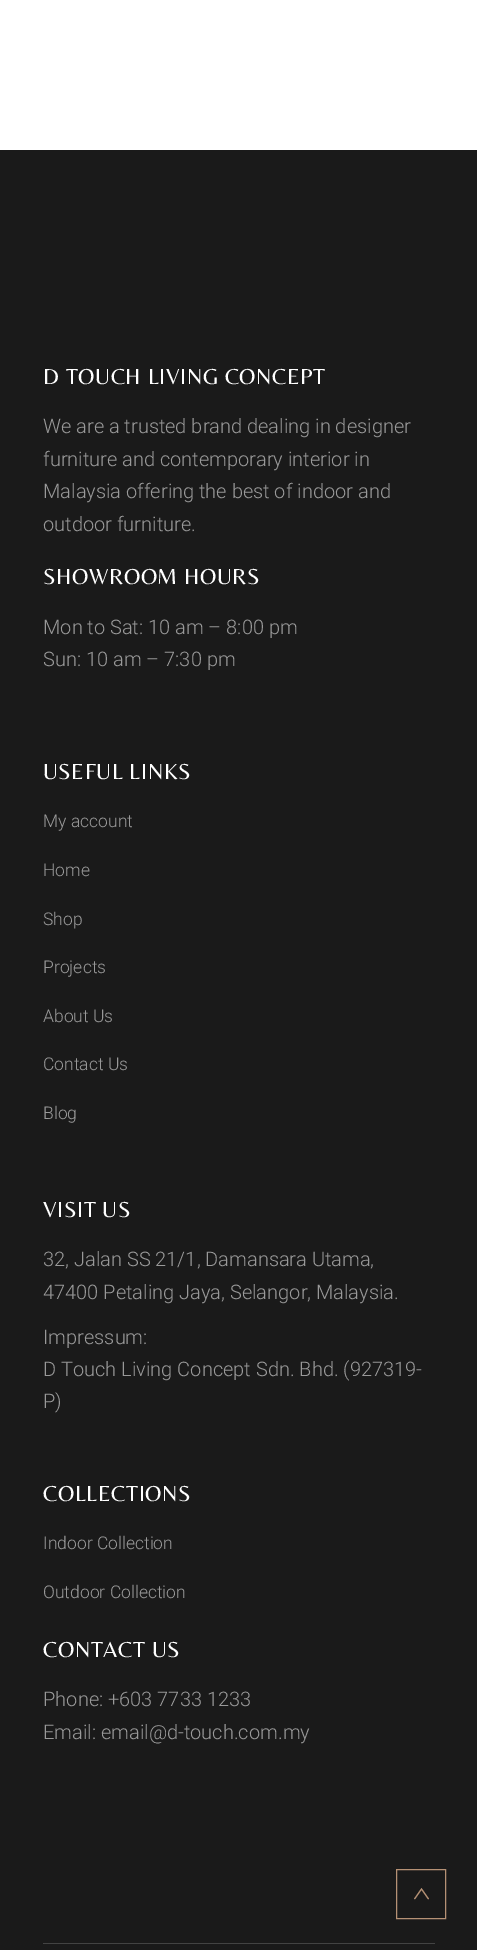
%!PS
<< /PageSize [477 1950] >> setpagedevice
0 1950 translate 1 -1 scale
4 setmiterlimit
1 setgray
0 0 477 1950 rectfill
0.102 setgray
0 150 477 1800 rectfill
/Belleza-Regular [22.5 0 0 -22.5 0 0] selectfont
1 setgray
43 384 moveto 0.6 0 (D TOUCH LIVING CONCEPT) ashow
/Roboto-Light [20 0 0 -20 0 0] selectfont
0.6 setgray
43 433 moveto (We are a trusted brand dealing in designer) show
43 466 moveto (furniture and contemporary interior in) show
43 498 moveto (Malaysia offering the best of indoor and) show
43 531 moveto (outdoor furniture.) show
/Belleza-Regular [22.5 0 0 -22.5 0 0] selectfont
1 setgray
43 584 moveto 0.6 0 (SHOWROOM HOURS) ashow
/Roboto-Light [20 0 0 -20 0 0] selectfont
0.6 setgray
43 634 moveto (Mon to Sat: 10 am – 8:00 pm) show
43 666 moveto (Sun: 10 am – 7:30 pm) show
/Belleza-Regular [22.5 0 0 -22.5 0 0] selectfont
1 setgray
43 779 moveto 0.6 0 (USEFUL LINKS) ashow
/Roboto-Light [17.5 0 0 -17.5 0 0] selectfont
0.6 setgray
43 827 moveto (My account) show
43 876 moveto (Home) show
43 925 moveto (Shop) show
43 973 moveto (Projects) show
43 1022 moveto (About Us) show
43 1070 moveto (Contact Us) show
43 1119 moveto (Blog) show
/Belleza-Regular [22.5 0 0 -22.5 0 0] selectfont
1 setgray
43 1217 moveto 0.6 0 (VISIT US) ashow
/Roboto-Light [20 0 0 -20 0 0] selectfont
0.6 setgray
43 1266 moveto (32, Jalan SS 21/1, Damansara Utama,) show
43 1299 moveto (47400 Petaling Jaya, Selangor, Malaysia.) show
43 1344 moveto (Impressum:) show
43 1376 moveto (D Touch Living Concept Sdn. Bhd. \(927319-) show
43 1408 moveto (P\)) show
/Belleza-Regular [22.5 0 0 -22.5 0 0] selectfont
1 setgray
43 1501 moveto 0.6 0 (COLLECTIONS) ashow
/Roboto-Light [17.5 0 0 -17.5 0 0] selectfont
0.6 setgray
43 1549 moveto (Indoor Collection) show
43 1598 moveto (Outdoor Collection) show
/Belleza-Regular [22.5 0 0 -22.5 0 0] selectfont
1 setgray
43 1657 moveto 0.6 0 (CONTACT US) ashow
/Roboto-Light [20 0 0 -20 0 0] selectfont
0.6 setgray
43 1706 moveto (Phone: +603 7733 1233) show
43 1739 moveto (Email: email@d-touch.com.my) show
0.263 setgray
43 1943 392 1 rectfill
0.71 0.569 0.459 setrgbcolor
396.5 1869.5 49 49 rectstroke
1.1 setlinewidth
newpath 428.5 1899 moveto 421.5 1889 lineto 414.5 1899 lineto stroke
showpage
